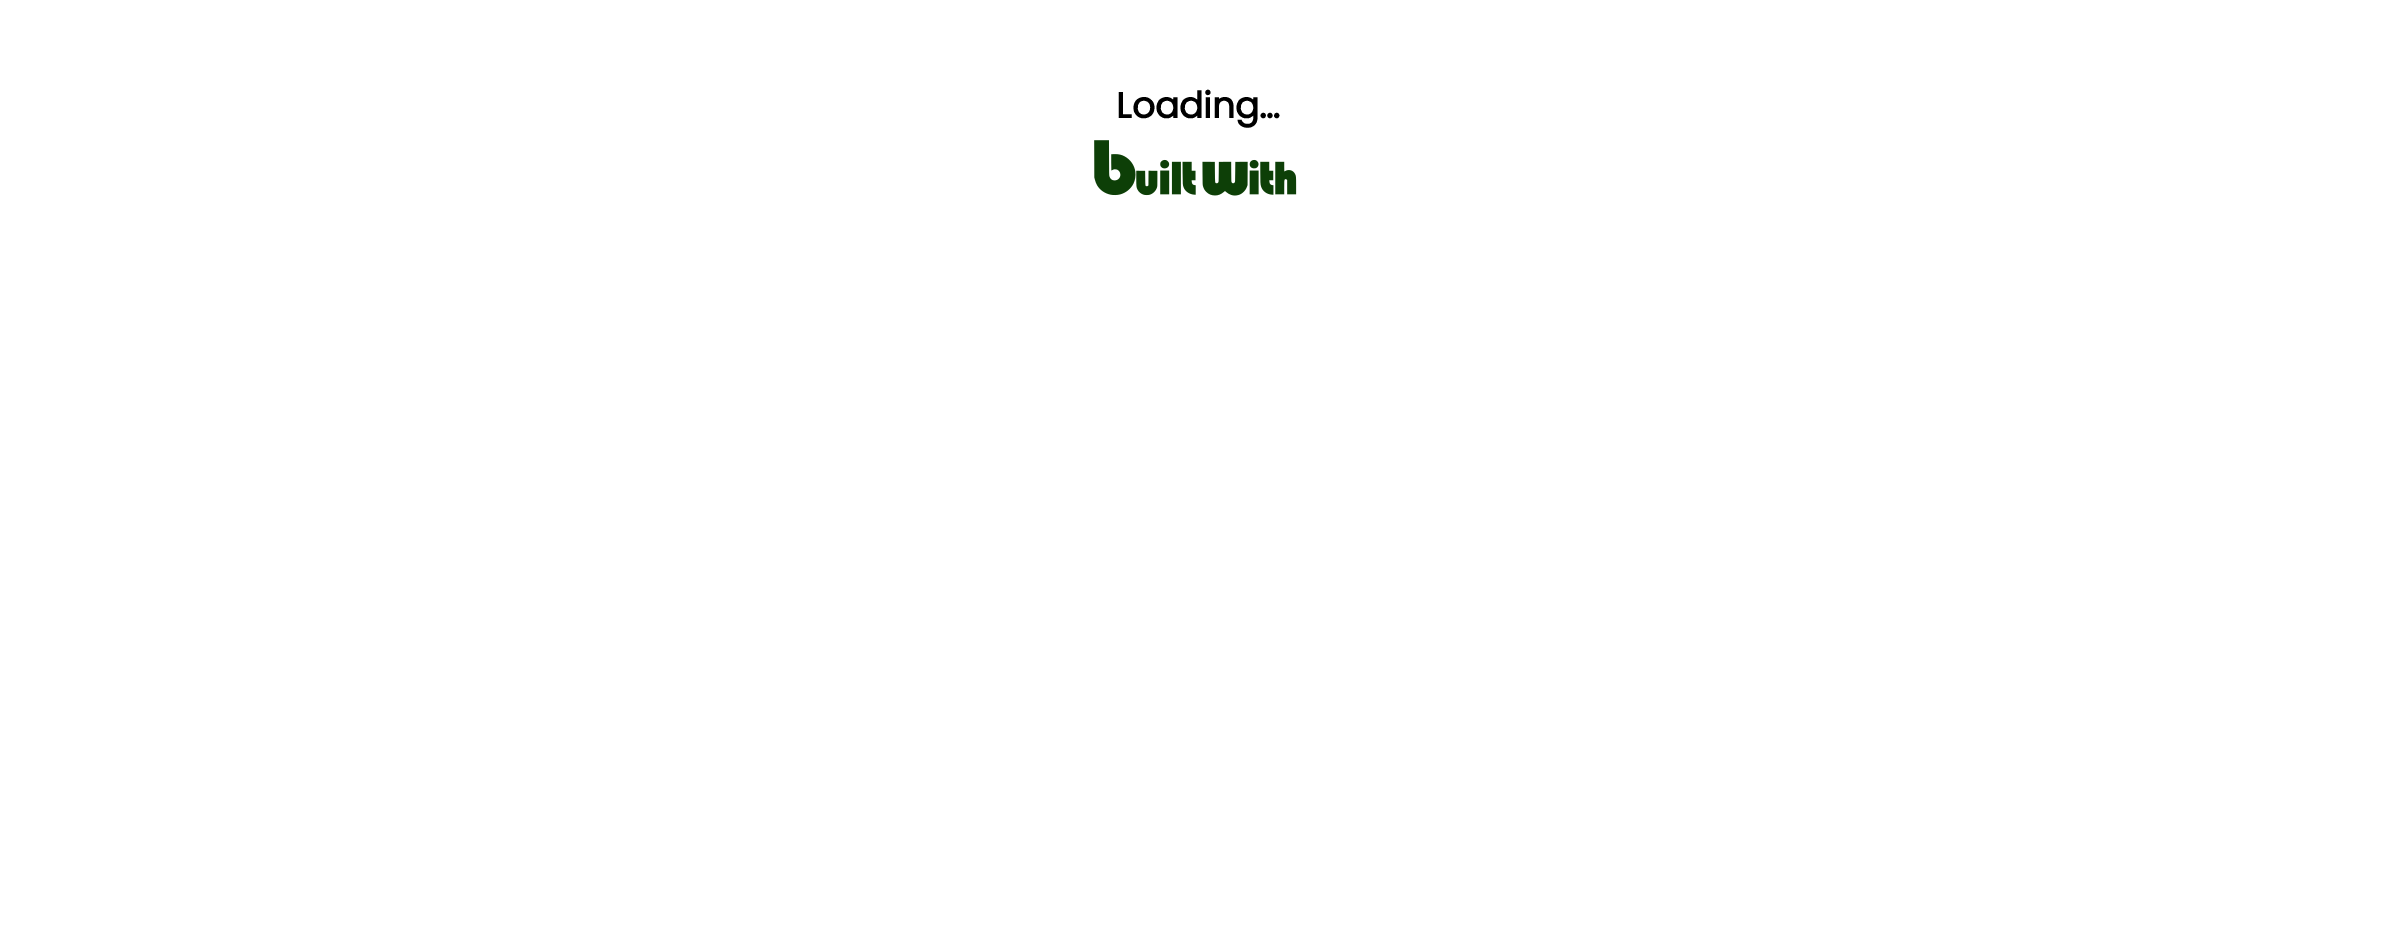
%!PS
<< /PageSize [2396 951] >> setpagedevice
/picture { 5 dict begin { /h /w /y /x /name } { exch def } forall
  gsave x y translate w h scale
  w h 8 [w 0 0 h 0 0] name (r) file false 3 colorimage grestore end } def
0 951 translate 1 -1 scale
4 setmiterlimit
1 setgray
0 0 2396 951 rectfill
/Poppins-Bold [36 0 0 -36 0 0] selectfont
0 setgray
1116 118 moveto (Loading…) show
(img1.rgb) 1094 140 203 56 picture
showpage
